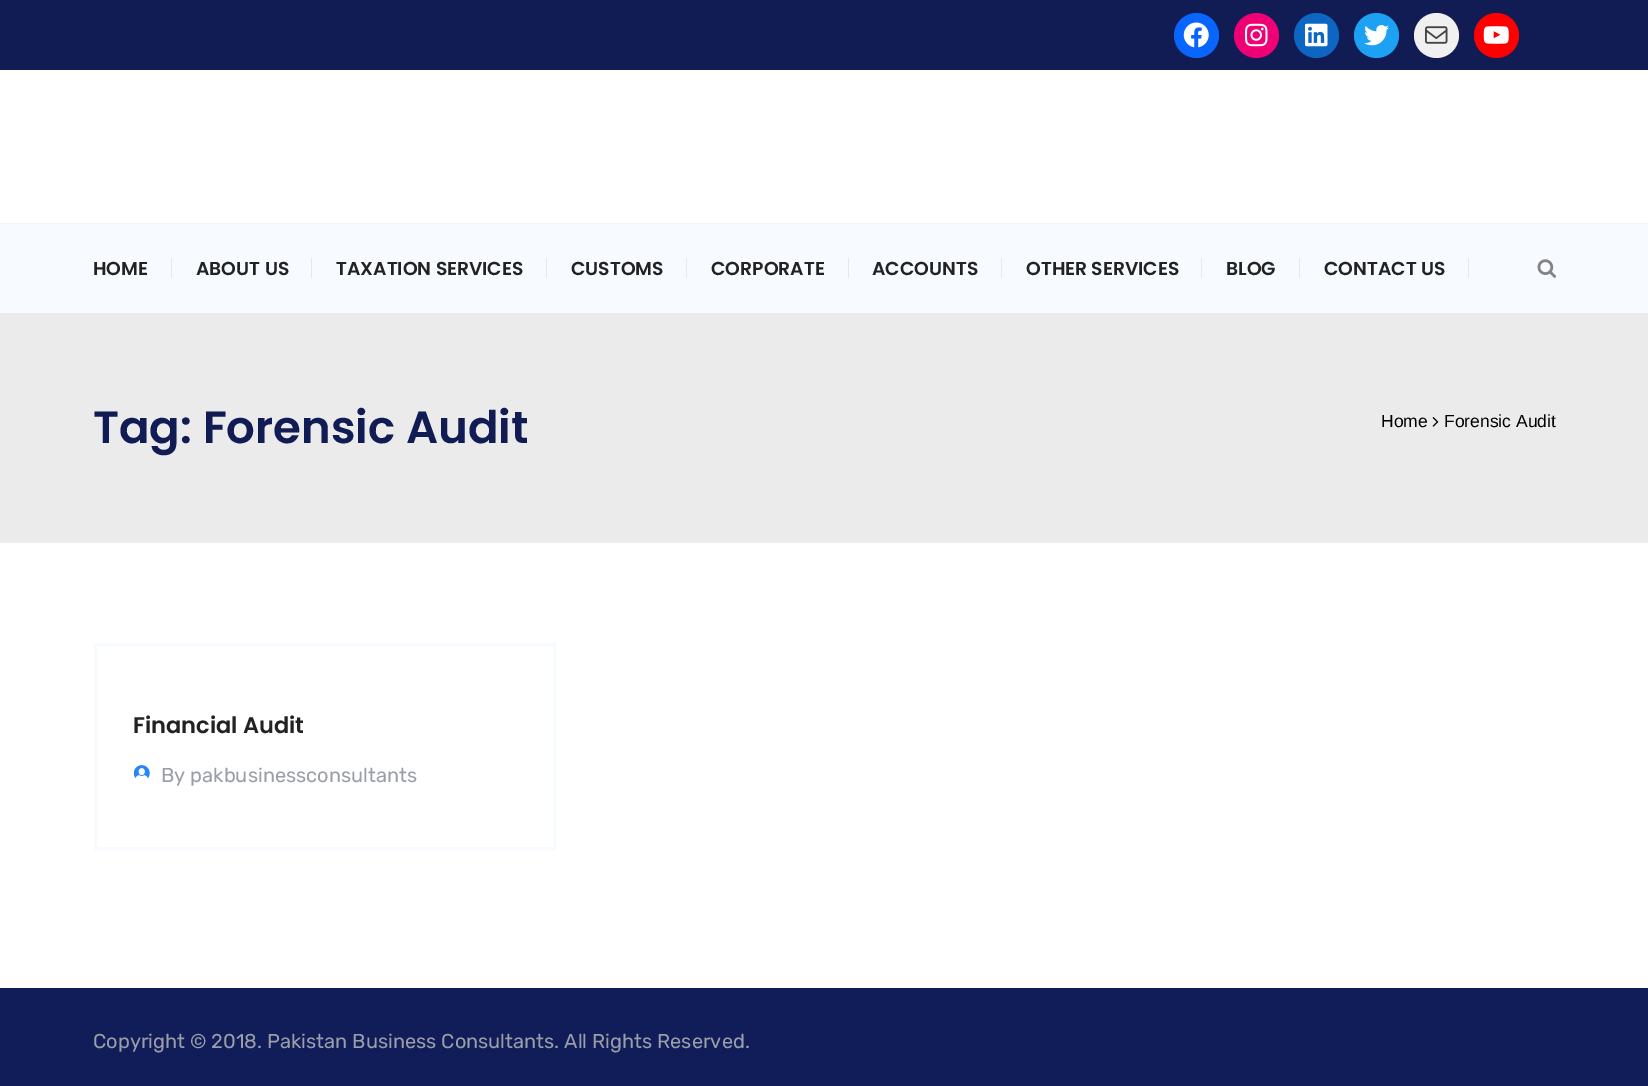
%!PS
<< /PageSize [1648 1086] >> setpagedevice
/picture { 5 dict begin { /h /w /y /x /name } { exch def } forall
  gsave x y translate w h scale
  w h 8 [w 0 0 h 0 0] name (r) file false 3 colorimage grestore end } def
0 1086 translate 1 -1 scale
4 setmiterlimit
1 setgray
0 0 1648 1086 rectfill
0.067 0.11 0.333 setrgbcolor
0 0 1648 70 rectfill
0.031 0.4 1 setrgbcolor
newpath 1196.5 35.5 22.5 0 360 arc closepath fill
(img1.rgb) 1183 22 26 26 picture
0.941 0 0.459 setrgbcolor
newpath 1256.5 35.5 22.5 0 360 arc closepath fill
(img2.rgb) 1245 23 23 24 picture
0.051 0.4 0.761 setrgbcolor
newpath 1316.5 35.5 22.5 0 360 arc closepath fill
(img3.rgb) 1305 23 23 24 picture
0.114 0.631 0.949 setrgbcolor
newpath 1376.5 35.5 22.5 0 360 arc closepath fill
(img4.rgb) 1364 25 25 21 picture
0.941 setgray
newpath 1436.5 35.5 22.5 0 360 arc closepath fill
(img5.rgb) 1425 26 23 18 picture
1 0 0 setrgbcolor
newpath 1496.5 35.5 22.5 0 360 arc closepath fill
(img6.rgb) 1483 26 26 18 picture
0.969 0.98 1 setrgbcolor
0 224 1648 89 rectfill
0.941 0.953 0.969 setrgbcolor
0 223 1648 1 rectfill
/Poppins-SemiBold [18.75 0 0 -18.75 0 0] selectfont
0.133 setgray
93 275 moveto (HOME) show
0.91 setgray
171 258 1 20 rectfill
0.133 setgray
196 275 moveto (ABOUT US) show
0.91 setgray
311 258 1 20 rectfill
0.133 setgray
336 275 moveto (TAXATION SERVICES) show
0.91 setgray
546 258 1 20 rectfill
0.133 setgray
571 275 moveto (CUSTOMS) show
0.91 setgray
686 258 1 20 rectfill
0.133 setgray
711 275 moveto (CORPORATE) show
0.91 setgray
848 258 1 20 rectfill
0.133 setgray
872 275 moveto (ACCOUNTS) show
0.91 setgray
1001 258 1 20 rectfill
0.133 setgray
1026 275 moveto (OTHER SERVICES) show
0.91 setgray
1201 258 1 20 rectfill
0.133 setgray
1226 275 moveto (BLOG) show
0.91 setgray
1299 258 1 20 rectfill
0.133 setgray
1324 275 moveto (CONTACT US) show
0.91 setgray
1468 258 1 20 rectfill
(img7.rgb) 1537 259 19 19 picture
0.922 setgray
0 313 1648 230 rectfill
/Poppins-SemiBold [45 0 0 -45 0 0] selectfont
0.067 0.11 0.333 setrgbcolor
93 443 moveto (Tag: Forensic Audit) show
/LiberationSans-Regular [17.5 0 0 -17.5 0 0] selectfont
0 setgray
1381 427 moveto (Home) show
(img8.rgb) 1432 417 7 10 picture
1444 427 moveto (Forensic Audit) show
0.969 0.98 1 setrgbcolor
3 setlinewidth
95.5 644.5 459 204 rectstroke
/Poppins-SemiBold [22.5 0 0 -22.5 0 0] selectfont
0.133 setgray
133 733 moveto (Financial Audit) show
(img9.rgb) 134 765 16 14 picture
/Rubik-Light [20 0 0 -20 0 0] selectfont
0.608 0.62 0.659 setrgbcolor
161 782 moveto (By pakbusinessconsultants) show
0.067 0.114 0.349 setrgbcolor
0 988 1648 98 rectfill
0.608 0.62 0.659 setrgbcolor
93 1048 moveto (Copyright © 2018. Pakistan Business Consultants. All Rights Reserved.) show
showpage
